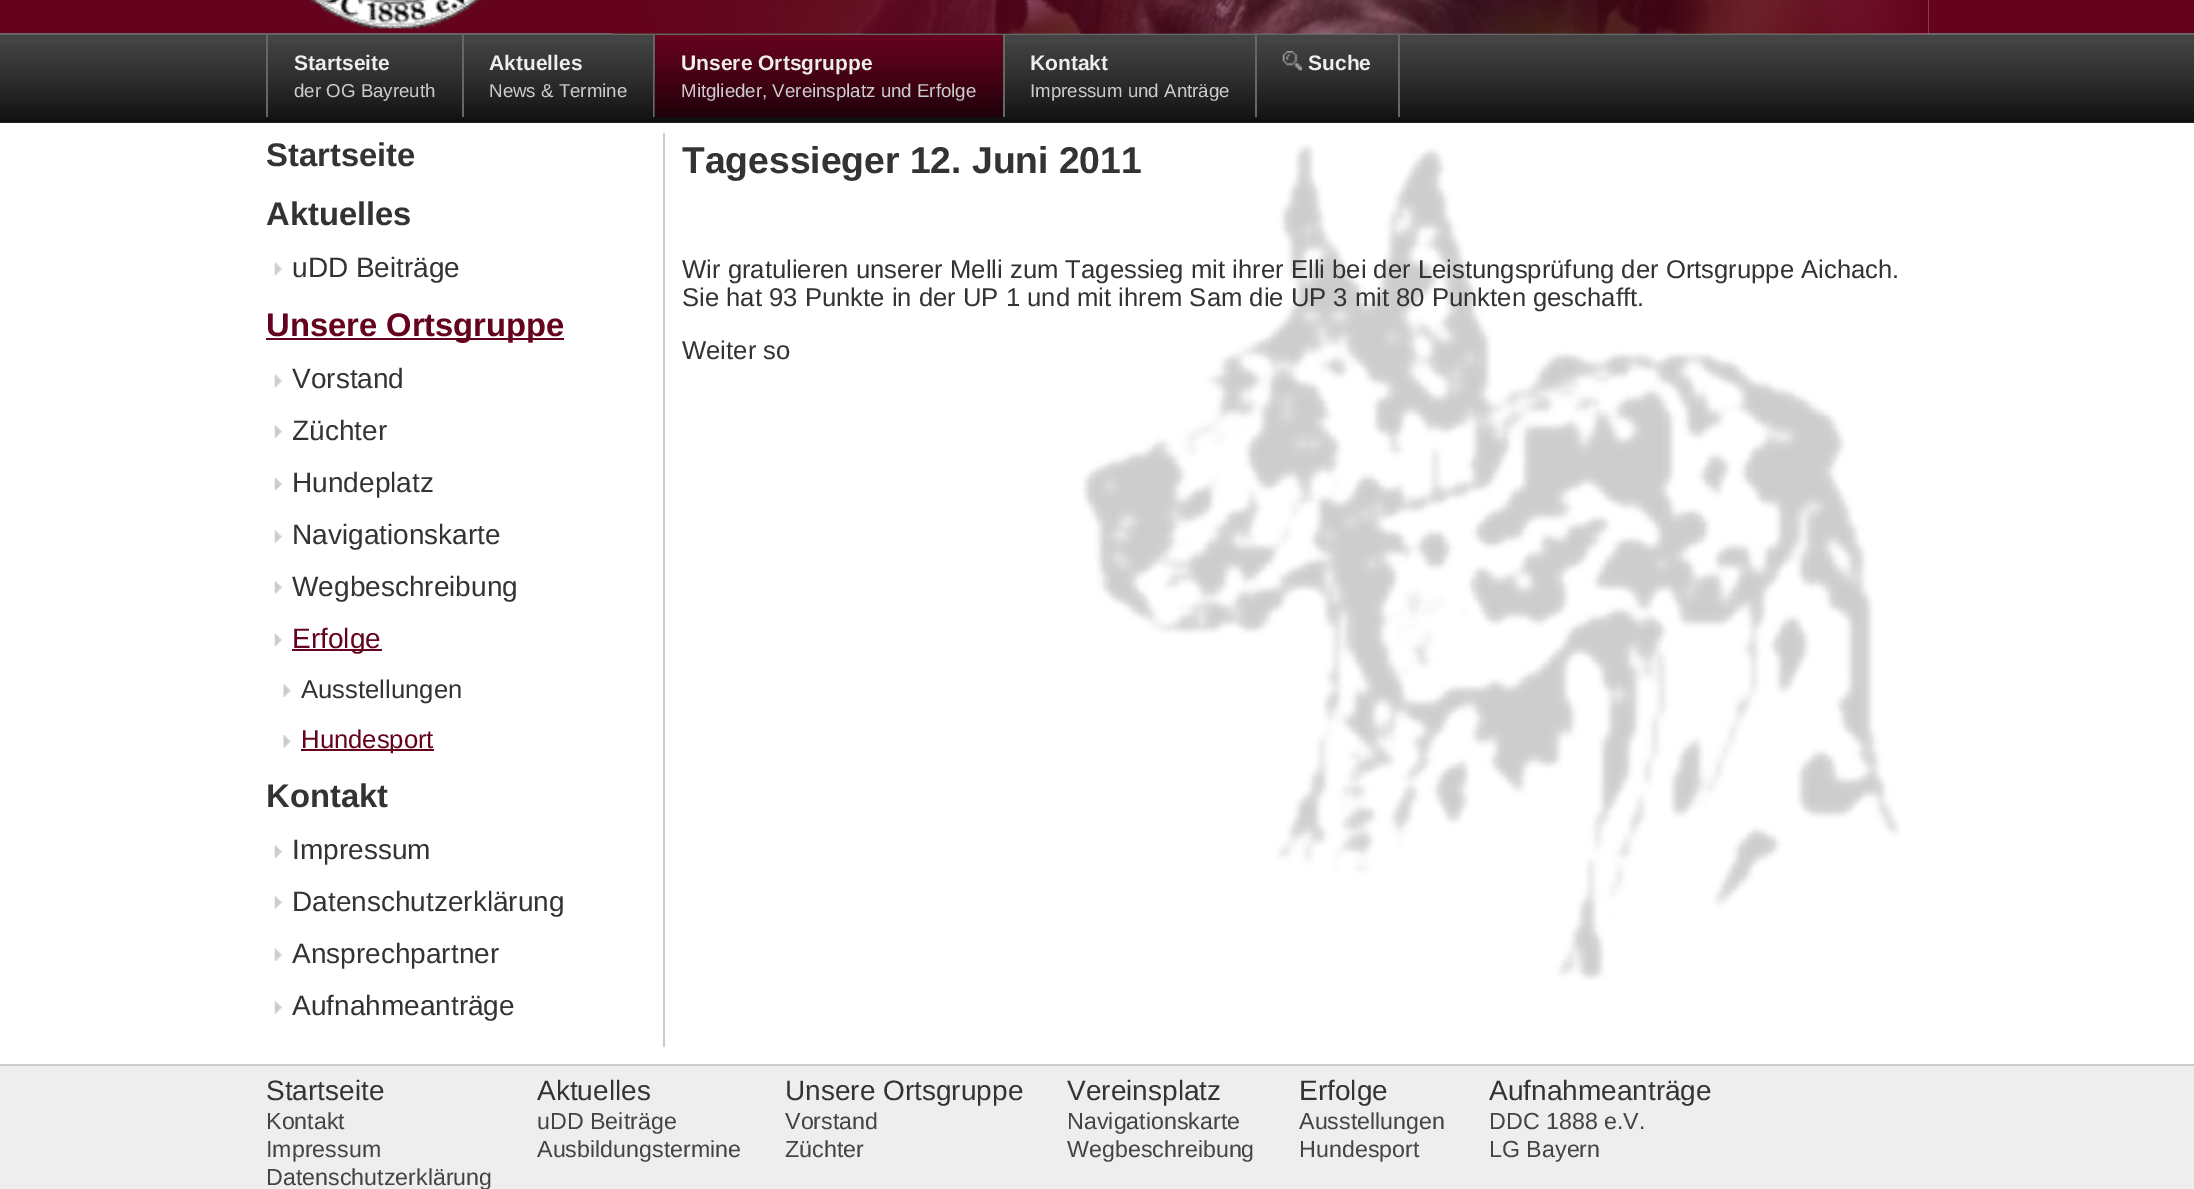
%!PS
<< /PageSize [2194 1189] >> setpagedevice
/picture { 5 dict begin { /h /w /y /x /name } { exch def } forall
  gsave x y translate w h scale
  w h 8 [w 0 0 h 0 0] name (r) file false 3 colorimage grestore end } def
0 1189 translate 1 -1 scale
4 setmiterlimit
1 setgray
0 0 2194 1189 rectfill
0.396 0.008 0.118 setrgbcolor
0 0 2194 33 rectfill
(img1.rgb) 309 0 173 29 picture
0.4 setgray
0 33 2194 2 rectfill
(img3.rgb) 616 0 1313 34 picture
(img2.rgb) 612 0 1317 34 picture
0.267 setgray
0 35 2194 88 rectfill
(img4.rgb) 0 44 2194 79 picture
0.4 setgray
462 35 2 82 rectfill
266 35 2 82 rectfill
/LiberationSans-Bold [21 0 0 -21 0 0] selectfont
0.933 setgray
294 70 moveto (Startseite) show
/LiberationSans-Regular [18.7 0 0 -18.7 0 0] selectfont
0.8 setgray
294 97 moveto (der OG Bayreuth) show
0.4 setgray
653 35 2 82 rectfill
/LiberationSans-Bold [21 0 0 -21 0 0] selectfont
0.933 setgray
489 70 moveto (Aktuelles) show
/LiberationSans-Regular [18.7 0 0 -18.7 0 0] selectfont
0.8 setgray
489 97 moveto (News & Termine) show
0.396 0.008 0.118 setrgbcolor
655 35 348 82 rectfill
(img5.rgb) 654 40 351 78 picture
0.4 setgray
1003 35 2 82 rectfill
/LiberationSans-Bold [21 0 0 -21 0 0] selectfont
0.933 setgray
681 70 moveto (Unsere Ortsgruppe) show
/LiberationSans-Regular [18.7 0 0 -18.7 0 0] selectfont
0.8 setgray
681 97 moveto (Mitglieder, Vereinsplatz und Erfolge) show
0.4 setgray
1255 35 2 82 rectfill
/LiberationSans-Bold [21 0 0 -21 0 0] selectfont
0.933 setgray
1030 70 moveto (Kontakt) show
/LiberationSans-Regular [18.7 0 0 -18.7 0 0] selectfont
0.8 setgray
1030 97 moveto (Impressum und Anträge) show
0.4 setgray
1398 35 2 82 rectfill
(img6.rgb) 1282 51 20 20 picture
/LiberationSans-Bold [21 0 0 -21 0 0] selectfont
0.933 setgray
1308 70 moveto (Suche) show
0.8 setgray
663 133 2 914 rectfill
/LiberationSans-Bold [32.75 0 0 -32.75 0 0] selectfont
0.2 setgray
266 166 moveto (Startseite) show
266 225 moveto (Aktuelles) show
(img7.rgb) 274 262 8 13 picture
/LiberationSans-Regular [28 0 0 -28 0 0] selectfont
292 277 moveto (uDD Beiträge) show
0.396 0.008 0.118 setrgbcolor
266 338 298 2 rectfill
/LiberationSans-Bold [32.75 0 0 -32.75 0 0] selectfont
266 336 moveto (Unsere Ortsgruppe) show
(img7.rgb) 274 374 8 13 picture
/LiberationSans-Regular [28 0 0 -28 0 0] selectfont
0.2 setgray
292 388 moveto (Vorstand) show
(img8.rgb) 274 425 8 13 picture
292 440 moveto (Züchter) show
(img9.rgb) 274 478 8 13 picture
292 492 moveto (Hundeplatz) show
(img8.rgb) 274 530 8 13 picture
292 544 moveto (Navigationskarte) show
(img10.rgb) 274 581 8 13 picture
292 596 moveto (Wegbeschreibung) show
(img7.rgb) 274 633 8 13 picture
0.396 0.008 0.118 setrgbcolor
292 649 90 2 rectfill
292 648 moveto (Erfolge) show
(img11.rgb) 283 684 8 13 picture
/LiberationSans-Regular [25.65 0 0 -25.65 0 0] selectfont
0.2 setgray
301 698 moveto (Ausstellungen) show
(img12.rgb) 283 735 8 13 picture
0.396 0.008 0.118 setrgbcolor
301 749 133 2 rectfill
301 748 moveto (Hundesport) show
/LiberationSans-Bold [32.75 0 0 -32.75 0 0] selectfont
0.2 setgray
266 807 moveto (Kontakt) show
(img8.rgb) 274 845 8 13 picture
/LiberationSans-Regular [28 0 0 -28 0 0] selectfont
292 859 moveto (Impressum) show
(img10.rgb) 274 896 8 13 picture
292 911 moveto (Datenschutzerklärung) show
(img7.rgb) 274 948 8 13 picture
292 963 moveto (Ansprechpartner) show
(img10.rgb) 274 1001 8 13 picture
292 1015 moveto (Aufnahmeanträge) show
(img13.rgb) 1082 144 818 837 picture
/LiberationSans-Bold [37.25 0 0 -37.25 0 0] selectfont
682 173 moveto (Tagessieger 12. Juni 2011) show
/LiberationSans-Regular [25.65 0 0 -25.65 0 0] selectfont
682 278 moveto (Wir gratulieren unserer Melli zum Tagessieg) show
1191 278 moveto (mit ihrer Elli bei der Leistungsprüfung der Ortsgruppe Aichach.) show
682 306 moveto (Sie hat 93 Punkte in der UP 1 und mit ihrem Sam die UP 3 mit 80 Punkten geschafft.) show
682 359 moveto (Weiter so) show
0.933 setgray
0 1066 2194 123 rectfill
0.8 setgray
0 1064 2194 2 rectfill
/LiberationSans-Regular [28 0 0 -28 0 0] selectfont
0.2 setgray
266 1100 moveto (Startseite) show
/LiberationSans-Regular [23.25 0 0 -23.25 0 0] selectfont
0.267 setgray
266 1129 moveto (Kontakt) show
266 1157 moveto (Impressum) show
266 1185 moveto (Datenschutzerklärung) show
/LiberationSans-Regular [28 0 0 -28 0 0] selectfont
0.2 setgray
537 1100 moveto (Aktuelles) show
/LiberationSans-Regular [23.25 0 0 -23.25 0 0] selectfont
0.267 setgray
537 1129 moveto (uDD Beiträge) show
537 1157 moveto (Ausbildungstermine) show
/LiberationSans-Regular [28 0 0 -28 0 0] selectfont
0.2 setgray
785 1100 moveto (Unsere Ortsgruppe) show
/LiberationSans-Regular [23.25 0 0 -23.25 0 0] selectfont
0.267 setgray
785 1129 moveto (Vorstand) show
785 1157 moveto (Züchter) show
/LiberationSans-Regular [28 0 0 -28 0 0] selectfont
0.2 setgray
1067 1100 moveto (Vereinsplatz) show
/LiberationSans-Regular [23.25 0 0 -23.25 0 0] selectfont
0.267 setgray
1067 1129 moveto (Navigationskarte) show
1067 1157 moveto (Wegbeschreibung) show
/LiberationSans-Regular [28 0 0 -28 0 0] selectfont
0.2 setgray
1299 1100 moveto (Erfolge) show
/LiberationSans-Regular [23.25 0 0 -23.25 0 0] selectfont
0.267 setgray
1299 1129 moveto (Ausstellungen) show
1299 1157 moveto (Hundesport) show
/LiberationSans-Regular [28 0 0 -28 0 0] selectfont
0.2 setgray
1489 1100 moveto (Aufnahmeanträge) show
/LiberationSans-Regular [23.25 0 0 -23.25 0 0] selectfont
0.267 setgray
1489 1129 moveto (DDC 1888 e.V.) show
1489 1157 moveto (LG Bayern) show
showpage
